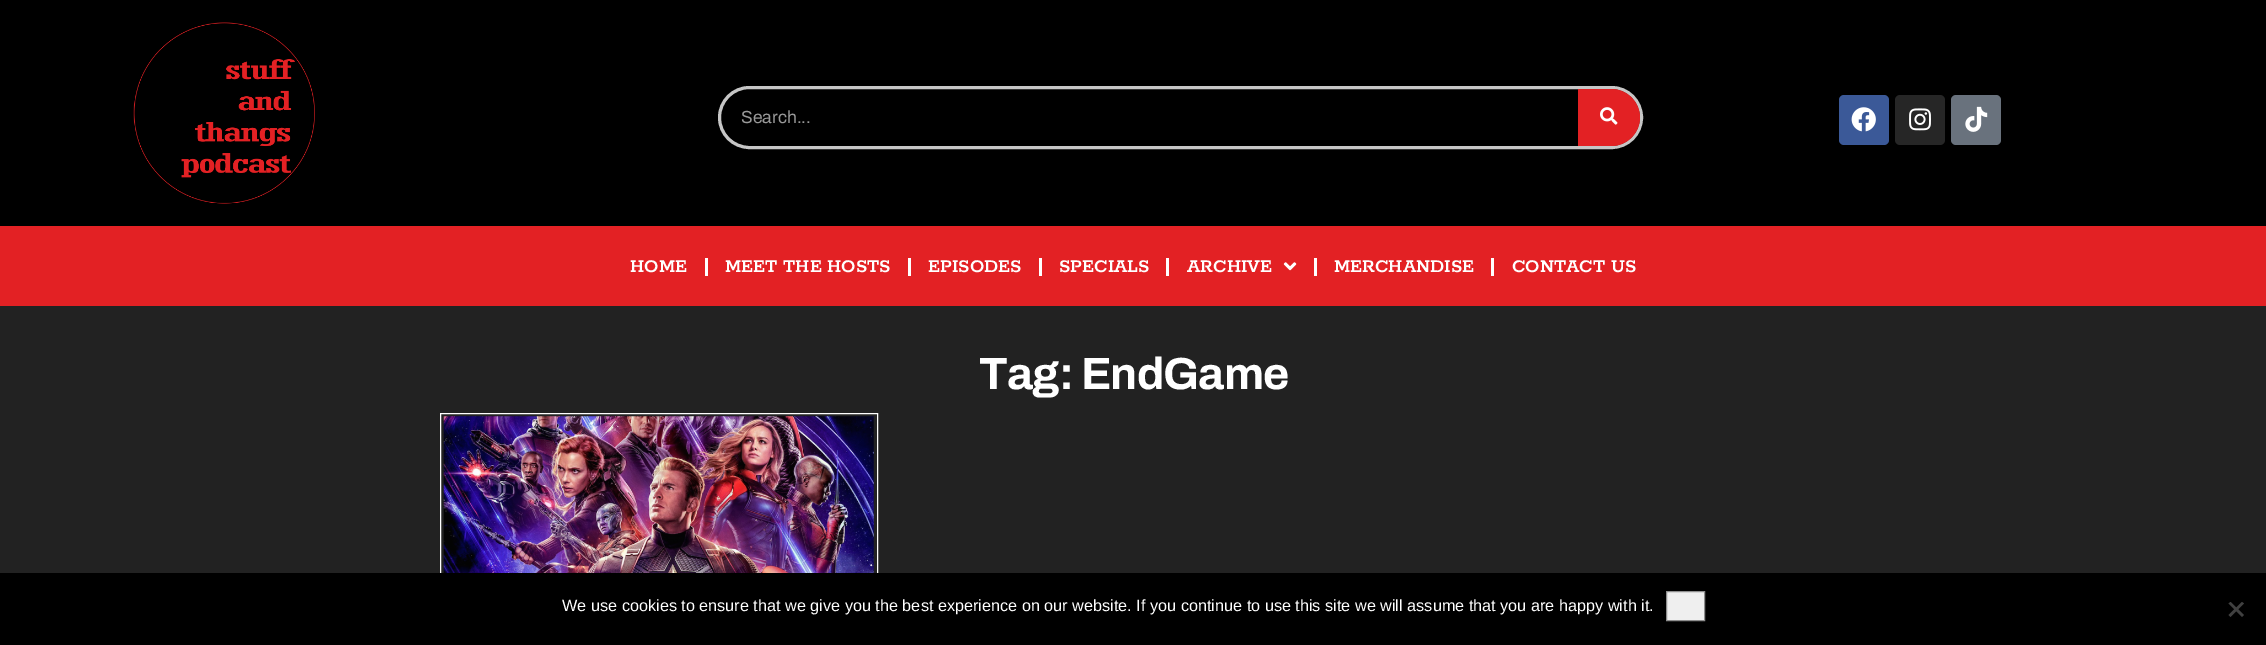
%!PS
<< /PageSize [2266 645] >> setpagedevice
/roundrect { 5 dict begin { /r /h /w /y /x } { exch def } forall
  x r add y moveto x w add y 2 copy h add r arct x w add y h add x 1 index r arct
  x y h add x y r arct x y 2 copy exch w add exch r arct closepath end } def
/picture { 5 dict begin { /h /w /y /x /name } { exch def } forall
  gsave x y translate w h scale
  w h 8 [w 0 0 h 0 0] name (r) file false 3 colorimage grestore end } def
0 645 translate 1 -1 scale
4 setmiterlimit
0.133 setgray
0 0 2266 645 rectfill
0 setgray
0 0 2266 226 rectfill
(img1.rgb) 133 22 182 182 picture
0.776 setgray
3 setlinewidth
719.5 87.5 922 60 30 roundrect stroke
/Archivo-Regular [17.5 0 0 -17.5 0 0] selectfont
0.6 setgray
741 123 moveto (Search...) show
0.89 0.129 0.141 setrgbcolor
newpath 1578 89 moveto 1611.5 89 lineto 1627 89 1640 102 1640 117.5 curveto 1640 133 1627 146 1611.5 146 curveto 1578 146 lineto closepath fill
(img2.rgb) 1600 107 18 18 picture
0.231 0.349 0.596 setrgbcolor
1839 95 50 50 5 roundrect fill
(img3.rgb) 1851 107 25 25 picture
0.149 setgray
1895 95 50 50 5 roundrect fill
(img4.rgb) 1909 108 22 23 picture
0.412 0.447 0.49 setrgbcolor
1951 95 50 50 5 roundrect fill
(img5.rgb) 1965 106 23 26 picture
0.89 0.129 0.141 setrgbcolor
0 226 2266 80 rectfill
/Rokkitt-SemiBold [20 0 0 -20 0 0] selectfont
1 setgray
630 272 moveto (HOME) show
705 258 3 18 rectfill
725 272 moveto (MEET THE HOSTS) show
908 258 3 18 rectfill
928 272 moveto (EPISODES) show
1039 258 3 18 rectfill
1059 272 moveto (SPECIALS) show
1166 258 3 18 rectfill
1187 272 moveto (ARCHIVE) show
(img6.rgb) 1283 262 14 9 picture
1314 258 3 18 rectfill
1334 272 moveto (MERCHANDISE) show
1491 258 3 18 rectfill
1512 272 moveto (CONTACT US) show
/Archivo-Bold [45 0 0 -45 0 0] selectfont
979 389 moveto -0.9 0 (Tag: EndGame) ashow
1 setlinewidth
440.5 413.5 437 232 rectstroke
(img7.rgb) 443 416 431 157 picture
0 setgray
0 573 2266 72 rectfill
/LiberationSans-Regular [16.25 0 0 -16.25 0 0] selectfont
1 setgray
562 611 moveto (We use cookies to ensure that we give you the best experience on our website. If you continue to use this site we will assume that you are happy with it.) show
0.937 setgray
newpath 1666.5 591.5 moveto 1704.5 591.5 lineto 1704.5 620.5 lineto 1666.5 620.5 lineto closepath gsave fill grestore
0.557 setgray
stroke
0.251 setgray
newpath 2242 602 moveto 2244 603.5 lineto 2230.5 617 lineto 2228.5 615 lineto closepath fill
newpath 2228.5 603.5 moveto 2230.5 602 lineto 2244 615 lineto 2242 617 lineto closepath fill
showpage
